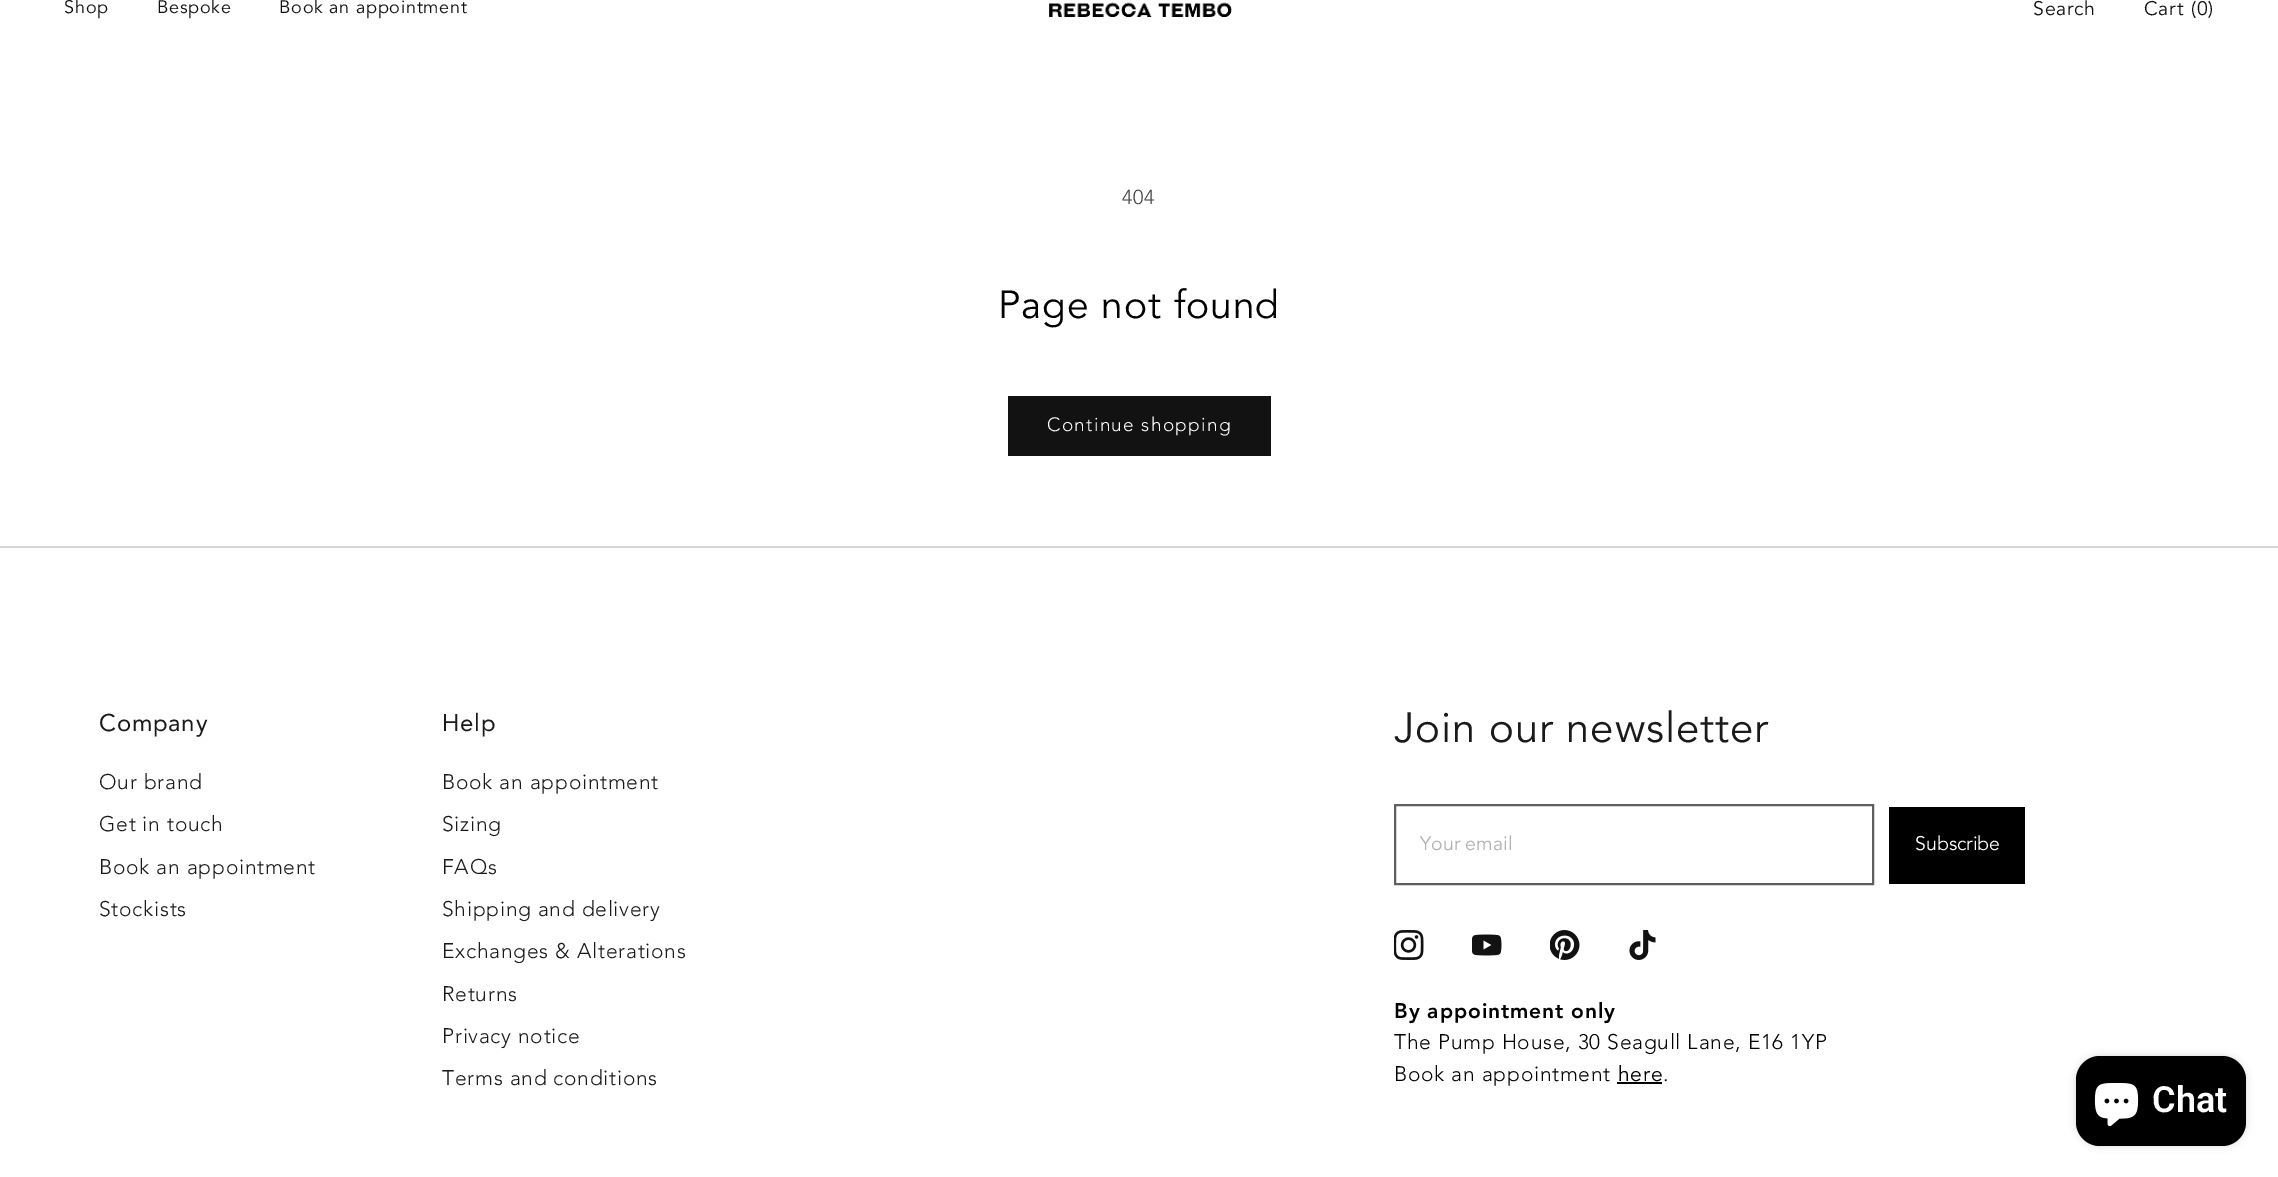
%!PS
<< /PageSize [2278 1177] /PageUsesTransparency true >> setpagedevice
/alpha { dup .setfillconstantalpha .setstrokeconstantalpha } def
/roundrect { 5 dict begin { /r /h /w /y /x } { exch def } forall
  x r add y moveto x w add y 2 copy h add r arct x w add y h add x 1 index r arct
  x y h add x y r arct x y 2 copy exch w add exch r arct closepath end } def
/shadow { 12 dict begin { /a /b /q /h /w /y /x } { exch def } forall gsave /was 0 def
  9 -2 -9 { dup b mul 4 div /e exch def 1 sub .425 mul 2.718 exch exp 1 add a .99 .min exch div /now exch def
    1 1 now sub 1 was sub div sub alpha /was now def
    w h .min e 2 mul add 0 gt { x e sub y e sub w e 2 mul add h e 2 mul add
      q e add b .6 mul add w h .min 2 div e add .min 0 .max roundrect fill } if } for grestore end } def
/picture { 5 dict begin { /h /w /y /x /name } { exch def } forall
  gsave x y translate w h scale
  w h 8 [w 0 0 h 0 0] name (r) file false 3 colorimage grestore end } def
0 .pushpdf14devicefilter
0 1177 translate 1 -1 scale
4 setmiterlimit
1 setgray
0 0 2278 1177 rectfill
/Avenir-Regular [18 0 0 -18 0 0] selectfont
0.071 setgray
64 13 moveto 0.75 0 (Shop) ashow
157 13 moveto 0.75 0 (Bespoke) ashow
279 13 moveto 0.75 0 (Book an appointment) ashow
(img1.rgb) 1049 2 183 16 picture
/Avenir-Regular [19.5 0 0 -19.5 0 0] selectfont
2033 15 moveto 0.75 0 (Search) ashow
2144 15 moveto 0.75 0 (Cart) ashow
2191 15 moveto 0.75 0 (\(0\)) ashow
/Avenir-Light [20 0 0 -20 0 0] selectfont
0.251 setgray
1122 204 moveto 0.75 0 (404) ashow
/Avenir-Regular [39 0 0 -39 0 0] selectfont
0 setgray
998 318 moveto 0.9 0 (Page not found) ashow
0.071 setgray
1008 396 263 60 rectfill
/Avenir-Light [19.1 0 0 -19.1 0 0] selectfont
1 setgray
1047 431 moveto 1.25 0 (Continue shopping) ashow
0.839 setgray
0 546 2278 2 rectfill
/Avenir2-Regular [24 0 0 -24 0 0] selectfont
0.102 setgray
99 731 moveto 0.75 0 (Company) ashow
/Avenir-Light [21 0 0 -21 0 0] selectfont
99 789 moveto 0.75 0 (Our brand) ashow
99 831 moveto 0.75 0 (Get in touch) ashow
99 874 moveto 0.75 0 (Book an appointment) ashow
99 916 moveto 0.75 0 (Stockists) ashow
/Avenir2-Regular [24 0 0 -24 0 0] selectfont
442 731 moveto 0.75 0 (Help) ashow
/Avenir-Light [21 0 0 -21 0 0] selectfont
442 789 moveto 0.75 0 (Book an appointment) ashow
442 831 moveto 0.75 0 (Sizing) ashow
442 874 moveto 0.75 0 (FAQs) ashow
442 916 moveto 0.75 0 (Shipping and delivery) ashow
442 958 moveto 0.75 0 (Exchanges & Alterations) ashow
442 1001 moveto 0.75 0 (Returns) ashow
442 1043 moveto 0.75 0 (Privacy notice) ashow
442 1085 moveto 0.75 0 (Terms and conditions) ashow
/Avenir-Regular [42 0 0 -42 0 0] selectfont
1394 742 moveto 0.9 0 (Join our newsletter) ashow
0.373 setgray
2 setlinewidth
1395 805 478 79 rectstroke
/Avenir-Regular [19.5 0 0 -19.5 0 0] selectfont
0.698 0.69 0.69 setrgbcolor
1420 850 moveto (Your email) show
0 setgray
1889 807 136 77 rectfill
1 setgray
1915 850 moveto (Subscribe) show
(img2.rgb) 1394 930 30 30 picture
(img3.rgb) 1472 934 30 22 picture
(img4.rgb) 1550 930 30 30 picture
(img5.rgb) 1629 930 27 30 picture
/Avenir-Black [21 0 0 -21 0 0] selectfont
0 setgray
1394 1018 moveto 0.9 0 (By appointment only) ashow
/Avenir-Light [21 0 0 -21 0 0] selectfont
1394 1049 moveto 0.75 0 (The Pump House, 30 Seagull Lane, E16 1YP) ashow
1394 1081 moveto 0.75 0 (Book an appointment) ashow
/Avenir-Regular [21 0 0 -21 0 0] selectfont
1618 1081 moveto 0.75 0 (here) ashow
1617 1082 45 2 rectfill
/Avenir-Light [21 0 0 -21 0 0] selectfont
1663 1081 moveto 0.75 0 (.) ashow
2076 1056 170 90 24 4 0.15 shadow
2076 1056 170 90 24 roundrect fill
(img6.rgb) 2094 1083 45 44 picture
/Roboto-SemiBold [36 0 0 -36 0 0] selectfont
1 setgray
2152 1112 moveto (Chat) show
.poppdf14devicefilter showpage
